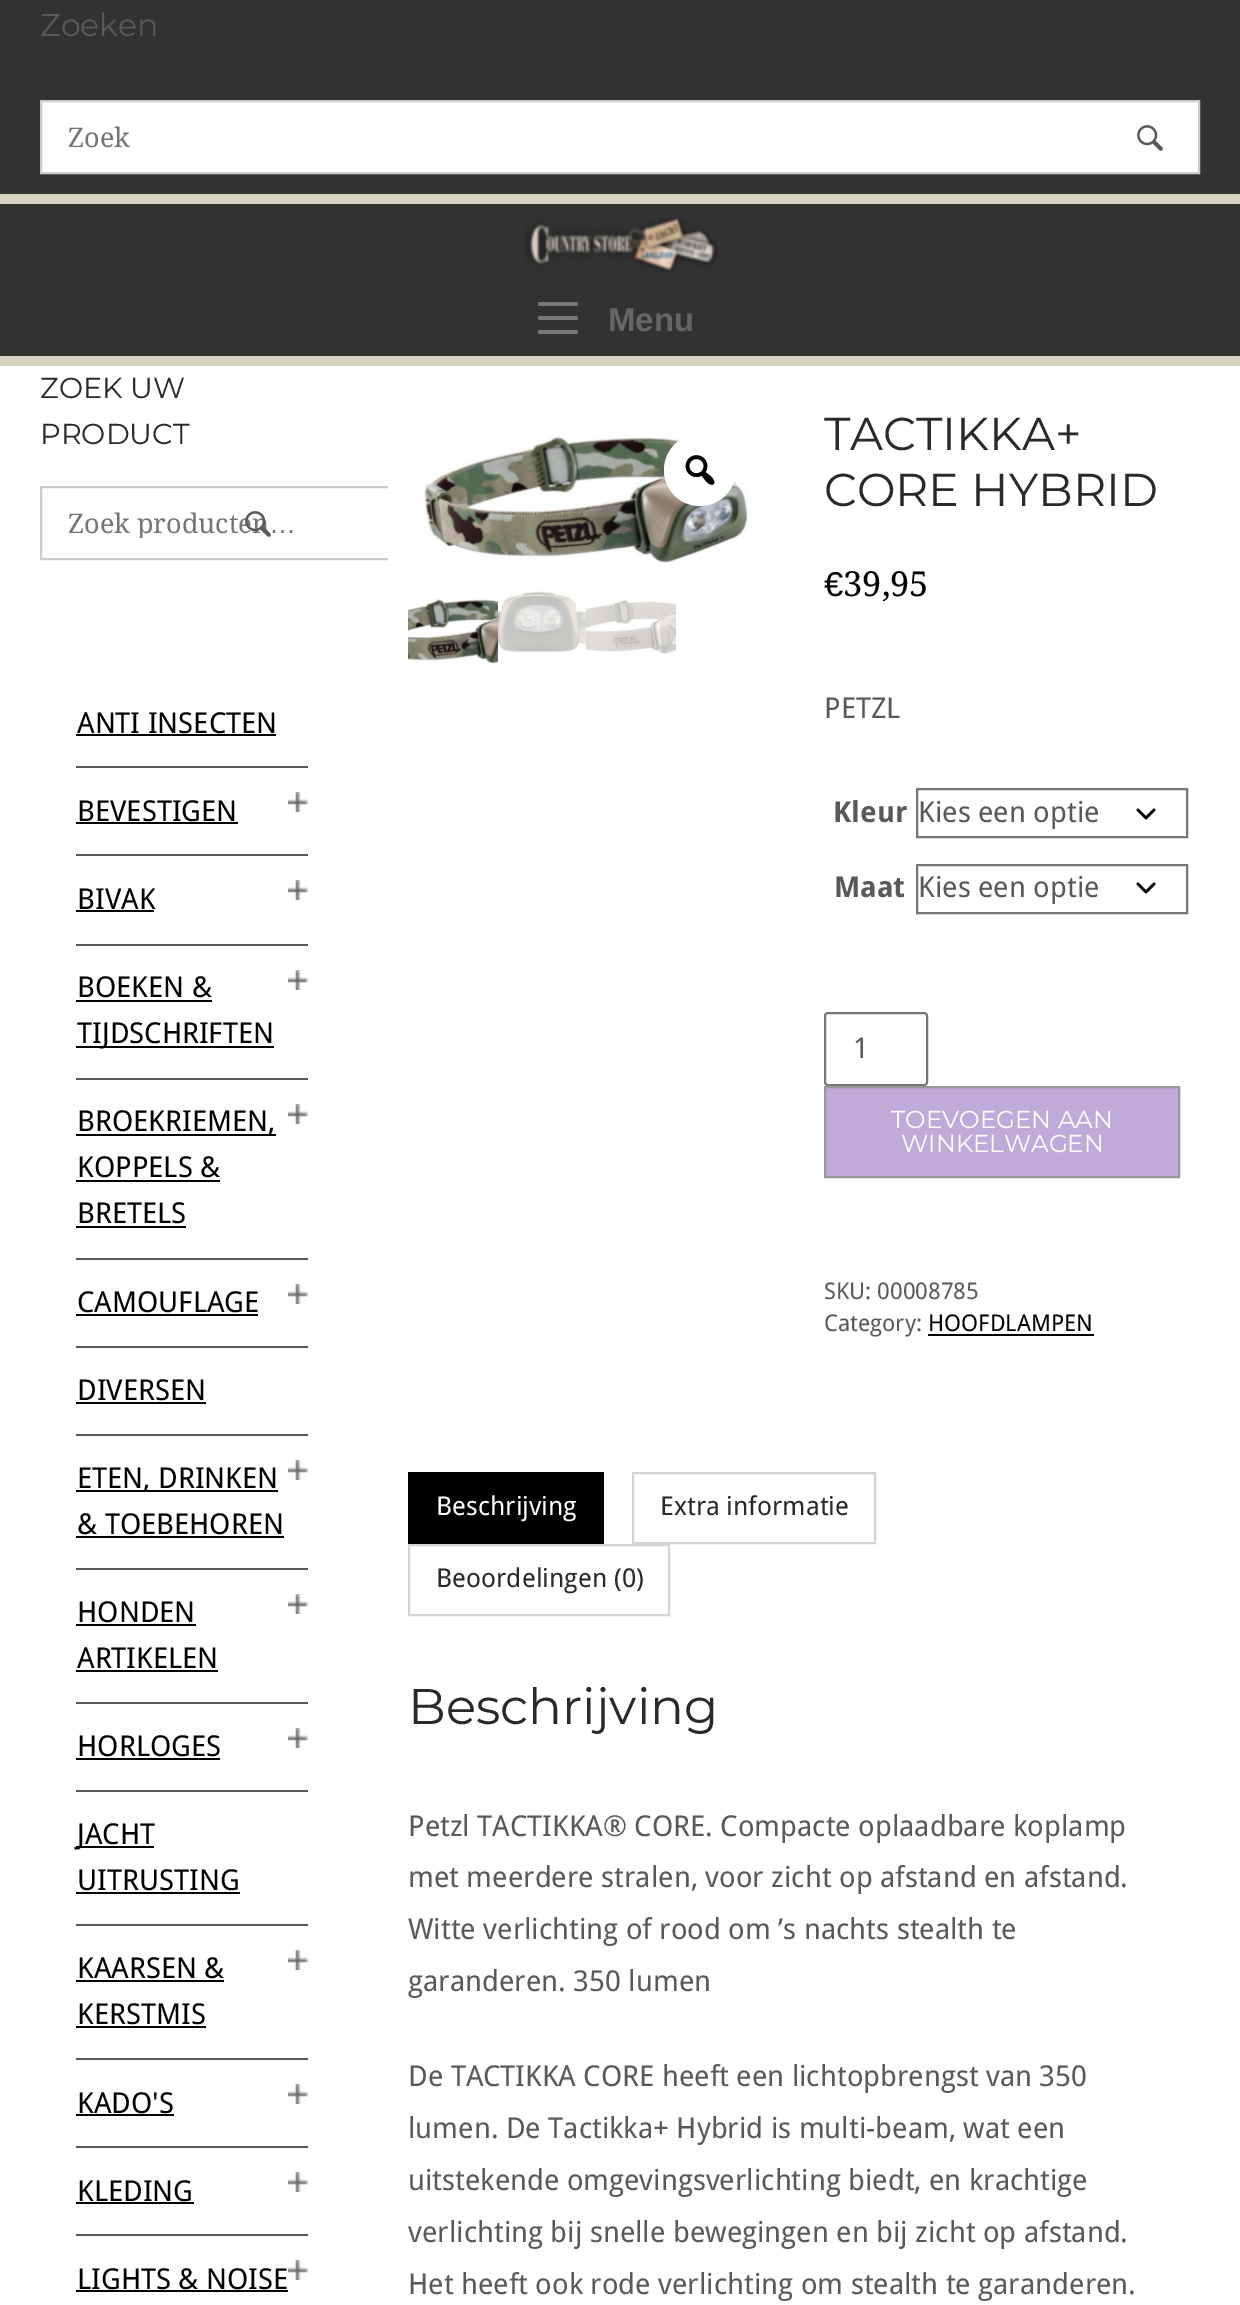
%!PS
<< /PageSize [1240 2305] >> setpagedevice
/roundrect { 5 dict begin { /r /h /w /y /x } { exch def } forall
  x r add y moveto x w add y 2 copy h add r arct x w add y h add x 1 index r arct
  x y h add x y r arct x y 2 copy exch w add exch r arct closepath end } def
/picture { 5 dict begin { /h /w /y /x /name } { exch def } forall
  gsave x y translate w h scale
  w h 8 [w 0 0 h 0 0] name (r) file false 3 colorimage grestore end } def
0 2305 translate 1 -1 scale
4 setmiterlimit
1 setgray
0 0 1240 2305 rectfill
0.196 0.196 0.2 setrgbcolor
0 0 1240 194 rectfill
0.851 0.82 0.757 setrgbcolor
0 194 1240 10 rectfill
/Montserrat-Thin [31.5 0 0 -31.5 0 0] selectfont
0.349 setgray
40 36 moveto (Zoeken) show
1 setgray
newpath 41 101 moveto 1199 101 lineto 1199 173 lineto 41 173 lineto closepath gsave fill grestore
0.8 setgray
2 setlinewidth
stroke
/DroidSerif-Regular [27 0 0 -27 0 0] selectfont
0.459 setgray
68 147 moveto (Zoek) show
(img1.rgb) 1137 125 26 26 picture
0.196 0.196 0.2 setrgbcolor
0 204 1240 152 rectfill
0.851 0.82 0.757 setrgbcolor
0 356 1240 10 rectfill
(img2.rgb) 524 217 194 56 picture
0.467 setgray
538 302 40 4 2 roundrect fill
538 316 40 4 2 roundrect fill
538 330 40 4 2 roundrect fill
/LiberationSans-Bold [33 0 0 -33 0 0] selectfont
0.4 setgray
608 331 moveto (Menu) show
/Montserrat-Thin [28.8 0 0 -28.8 0 0] selectfont
0.161 setgray
40 398 moveto (ZOEK UW) show
40 444 moveto (PRODUCT) show
(img6.rgb) 423 436 325 127 picture
gsave
40 366 348 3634 rectclip
0.8 setgray
41 487 598 72 rectstroke
grestore
gsave
68 506 320 32 rectclip
/DroidSerif-Regular [27 0 0 -27 0 0] selectfont
0.459 setgray
68 533 moveto (Zoek producten) show
grestore
(img3.rgb) 245 511 26 26 picture
/LiberationSans-Regular [27 0 0 -27 0 0] selectfont
0.459 setgray
269 533 moveto (…) show
0.349 setgray
76 766 232 2 rectfill
/DroidSans-Regular [28.8 0 0 -28.8 0 0] selectfont
0 setgray
77 733 moveto (ANTI INSECTEN) show
76 734 200 2 rectfill
0.349 setgray
76 854 232 2 rectfill
0 setgray
77 821 moveto (BEVESTIGEN) show
76 822 162 2 rectfill
(img4.rgb) 288 792 20 20 picture
0.349 setgray
76 944 232 2 rectfill
0 setgray
77 909 moveto (BIVAK) show
76 910 78 2 rectfill
(img4.rgb) 288 880 20 20 picture
0.349 setgray
76 1078 232 2 rectfill
0 setgray
77 997 moveto (BOEKEN &) show
76 1000 136 2 rectfill
(img4.rgb) 288 970 20 20 picture
76 1046 198 2 rectfill
77 1043 moveto (TIJDSCHRIFTEN) show
0.349 setgray
76 1258 232 2 rectfill
0 setgray
76 1134 200 2 rectfill
77 1131 moveto (BROEKRIEMEN,) show
(img4.rgb) 288 1104 20 20 picture
77 1177 moveto (KOPPELS &) show
76 1180 144 2 rectfill
77 1223 moveto (BRETELS) show
76 1226 110 2 rectfill
0.349 setgray
76 1346 232 2 rectfill
0 setgray
77 1312 moveto (CAMOUFLAGE) show
76 1314 182 2 rectfill
(img4.rgb) 288 1284 20 20 picture
0.349 setgray
76 1434 232 2 rectfill
0 setgray
77 1400 moveto (DIVERSEN) show
76 1402 130 2 rectfill
0.349 setgray
76 1568 232 2 rectfill
0 setgray
76 1490 202 2 rectfill
77 1488 moveto (ETEN, DRINKEN) show
(img4.rgb) 288 1460 20 20 picture
77 1534 moveto (& TOEBEHOREN) show
76 1536 208 2 rectfill
0.349 setgray
76 1702 232 2 rectfill
0 setgray
77 1622 moveto (HONDEN) show
76 1624 120 2 rectfill
(img4.rgb) 288 1594 20 20 picture
77 1668 moveto (ARTIKELEN) show
76 1670 142 2 rectfill
0.349 setgray
76 1790 232 2 rectfill
0 setgray
77 1756 moveto (HORLOGES) show
76 1758 144 2 rectfill
(img4.rgb) 288 1728 20 20 picture
0.349 setgray
76 1924 232 2 rectfill
0 setgray
76 1846 78 2 rectfill
77 1844 moveto (JACHT) show
77 1890 moveto (UITRUSTING) show
76 1892 164 2 rectfill
0.349 setgray
76 2058 232 2 rectfill
0 setgray
77 1978 moveto (KAARSEN &) show
76 1980 148 2 rectfill
(img4.rgb) 288 1950 20 20 picture
77 2024 moveto (KERSTMIS) show
76 2026 130 2 rectfill
0.349 setgray
76 2146 232 2 rectfill
0 setgray
77 2113 moveto (KADO'S) show
76 2114 98 2 rectfill
(img4.rgb) 288 2084 20 20 picture
0.349 setgray
76 2234 232 2 rectfill
0 setgray
77 2201 moveto (KLEDING) show
76 2202 118 2 rectfill
(img4.rgb) 288 2172 20 20 picture
77 2289 moveto (LIGHTS & NOISE) show
76 2290 212 2 rectfill
(img4.rgb) 288 2260 20 20 picture
1 setgray
newpath 700 470 36 0 360 arc closepath fill
(img5.rgb) 685 455 30 30 picture
(img7.rgb) 408 599 90 65 picture
(img8.rgb) 498 591 88 62 picture
(img9.rgb) 586 599 90 55 picture
/Montserrat-Thin [46 0 0 -46 0 0] selectfont
0.161 setgray
824 450 moveto (TACTIKKA+) show
824 506 moveto (CORE HYBRID) show
/LiberationSans-Regular [34.5 0 0 -34.5 0 0] selectfont
0 setgray
824 596 moveto (€) show
/DroidSerif-Regular [34.5 0 0 -34.5 0 0] selectfont
843 596 moveto (39,95) show
/DroidSans-Regular [28.8 0 0 -28.8 0 0] selectfont
0.349 setgray
824 718 moveto (PETZL) show
/DroidSans-Bold [28.8 0 0 -28.8 0 0] selectfont
833 822 moveto (Kleur) show
0 setgray
2.7 setlinewidth
1 setlinecap
1 setlinejoin
newpath 1138 810 moveto 1146 818 lineto 1154 810 lineto stroke
0.463 setgray
2 setlinewidth
0 setlinecap
0 setlinejoin
917 789 270 48 rectstroke
/DroidSans-Regular [28.8 0 0 -28.8 0 0] selectfont
0.349 setgray
918 822 moveto (Kies een optie) show
/DroidSans-Bold [28.8 0 0 -28.8 0 0] selectfont
834 897 moveto (Maat) show
0 setgray
2.7 setlinewidth
1 setlinecap
1 setlinejoin
newpath 1138 884 moveto 1146 892 lineto 1154 884 lineto stroke
0.463 setgray
2 setlinewidth
0 setlinecap
0 setlinejoin
917 865 270 48 rectstroke
/DroidSans-Regular [28.8 0 0 -28.8 0 0] selectfont
0.349 setgray
918 897 moveto (Kies een optie) show
0.463 setgray
825 1013 102 72 3 roundrect stroke
0.349 setgray
853 1058 moveto (1) show
0.749 0.667 0.851 setrgbcolor
newpath 825 1087 moveto 1179 1087 lineto 1179 1177 lineto 825 1177 lineto closepath gsave fill grestore
0.596 setgray
stroke
/Montserrat-Thin [24.5 0 0 -24.5 0 0] selectfont
1 setgray
891 1128 moveto (TOEVOEGEN AAN) show
901 1152 moveto (WINKELWAGEN) show
/DroidSans-Regular [23 0 0 -23 0 0] selectfont
0.349 setgray
824 1299 moveto (SKU: 00008785) show
824 1331 moveto (Category:) show
0 setgray
928 1331 moveto (HOOFDLAMPEN) show
928 1334 166 2 rectfill
408 1472 196 72 rectfill
/DroidSans-Regular [26 0 0 -26 0 0] selectfont
1 setgray
436 1515 moveto (Beschrijving) show
0.827 setgray
633 1473 242 70 rectstroke
0.161 setgray
660 1515 moveto (Extra informatie) show
0.827 setgray
409 1545 260 70 rectstroke
0.161 setgray
436 1587 moveto (Beoordelingen \(0\)) show
/Montserrat-Thin [50 0 0 -50 0 0] selectfont
408 1724 moveto (Beschrijving) show
/DroidSans-Regular [28.8 0 0 -28.8 0 0] selectfont
0.349 setgray
408 1836 moveto (Petzl TACTIKKA® CORE. Compacte oplaadbare koplamp) show
408 1887 moveto (met meerdere stralen, voor zicht op afstand en afstand.) show
408 1939 moveto (Witte verlichting of rood om ’s nachts stealth te) show
408 1991 moveto (garanderen. 350 lumen) show
408 2086 moveto (De TACTIKKA CORE heeft een lichtopbrengst van 350) show
408 2138 moveto (lumen. De Tactikka+ Hybrid is multi-beam, wat een) show
408 2190 moveto (uitstekende omgevingsverlichting biedt, en krachtige) show
408 2242 moveto (verlichting bij snelle bewegingen en bij zicht op afstand.) show
408 2294 moveto (Het heeft ook rode verlichting om stealth te garanderen.) show
showpage
